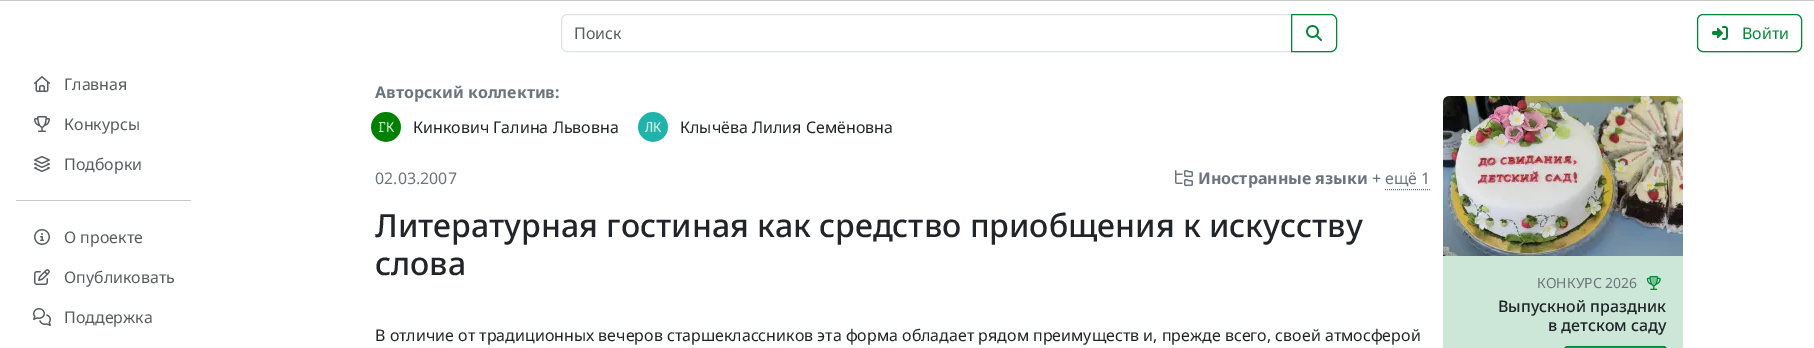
%!PS
<< /PageSize [1814 348] /PageUsesTransparency true >> setpagedevice
/alpha { dup .setfillconstantalpha .setstrokeconstantalpha } def
/roundrect { 5 dict begin { /r /h /w /y /x } { exch def } forall
  x r add y moveto x w add y 2 copy h add r arct x w add y h add x 1 index r arct
  x y h add x y r arct x y 2 copy exch w add exch r arct closepath end } def
/shadow { 12 dict begin { /a /b /q /h /w /y /x } { exch def } forall gsave /was 0 def
  9 -2 -9 { dup b mul 4 div /e exch def 1 sub .425 mul 2.718 exch exp 1 add a .99 .min exch div /now exch def
    1 1 now sub 1 was sub div sub alpha /was now def
    w h .min e 2 mul add 0 gt { x e sub y e sub w e 2 mul add h e 2 mul add
      q e add b .6 mul add w h .min 2 div e add .min 0 .max roundrect fill } if } for grestore end } def
/picture { 5 dict begin { /h /w /y /x /name } { exch def } forall
  gsave x y translate w h scale
  w h 8 [w 0 0 h 0 0] name (r) file false 3 colorimage grestore end } def
0 .pushpdf14devicefilter
0 348 translate 1 -1 scale
4 setmiterlimit
1 setgray
0 0 1814 348 rectfill
0.784 0.788 0.792 setrgbcolor
0 0 1814 1 rectfill
0.871 0.886 0.902 setrgbcolor
newpath 567 14.5 moveto 1291.5 14.5 lineto 1291.5 51.5 lineto 567 51.5 lineto 564 51.5 561.5 49 561.5 46 curveto 561.5 20 lineto 561.5 17 564 14.5 567 14.5 curveto closepath stroke
/NotoSans-Regular [16 0 0 -16 0 0] selectfont
0.349 0.361 0.373 setrgbcolor
574 39 moveto (Поиск) show
gsave
newpath 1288 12 moveto 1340 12 lineto 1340 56 lineto 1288 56 lineto closepath 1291 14 moveto 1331 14 lineto 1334.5 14 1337 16.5 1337 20 curveto 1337 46 lineto 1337 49.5 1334.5 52 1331 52 curveto 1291 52 lineto closepath eoclip newpath
0 setgray
1291 15 46 38 6 0.5 0.07 shadow
grestore
0 0.529 0.22 setrgbcolor
newpath 1291.5 14.5 moveto 1331 14.5 lineto 1334 14.5 1336.5 17 1336.5 20 curveto 1336.5 46 lineto 1336.5 49 1334 51.5 1331 51.5 curveto 1291.5 51.5 lineto closepath stroke
(img1.rgb) 1306 25 16 16 picture
gsave
newpath 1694 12 moveto 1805 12 lineto 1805 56 lineto 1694 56 lineto closepath 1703 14 moveto 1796 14 lineto 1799.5 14 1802 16.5 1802 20 curveto 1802 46 lineto 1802 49.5 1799.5 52 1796 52 curveto 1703 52 lineto 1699.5 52 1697 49.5 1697 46 curveto 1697 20 lineto 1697 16.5 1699.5 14 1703 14 curveto closepath eoclip newpath
0 setgray
1697 15 105 38 6 0.5 0.07 shadow
grestore
1697.5 14.5 104 37 5.5 roundrect stroke
(img2.rgb) 1712 26 16 14 picture
1742 39 moveto (Войти) show
(img3.rgb) 34 76 16 16 picture
0.349 0.361 0.373 setrgbcolor
64 90 moveto (Главная) show
(img4.rgb) 34 116 16 16 picture
64 130 moveto (Конкурсы) show
(img5.rgb) 34 156 16 16 picture
64 170 moveto (Подборки) show
0.784 0.788 0.792 setrgbcolor
16 200 175 1 rectfill
(img6.rgb) 34 229 16 16 picture
0.349 0.361 0.373 setrgbcolor
64 243 moveto (О проекте) show
(img7.rgb) 34 269 16 16 picture
64 283 moveto (Опубликовать) show
(img8.rgb) 33 308 18 18 picture
64 323 moveto (Поддержка) show
/NotoSans-Bold [16 0 0 -16 0 0] selectfont
0.424 0.459 0.49 setrgbcolor
375 98 moveto (Авторский коллектив:) show
(img9.rgb) 371 112 30 30 picture
/NotoSans-Regular [16 0 0 -16 0 0] selectfont
0.129 0.145 0.161 setrgbcolor
413 133 moveto (Кинкович Галина Львовна) show
(img10.rgb) 638 112 30 30 picture
680 133 moveto (Клычёва Лилия Семёновна) show
0.424 0.459 0.49 setrgbcolor
375 184 moveto (02.03.2007) show
(img11.rgb) 1175 170 18 16 picture
/NotoSans-Bold [16 0 0 -16 0 0] selectfont
1198 184 moveto (Иностранные языки) show
/NotoSans-Regular [16 0 0 -16 0 0] selectfont
1372 184 moveto (+ ещё 1) show
[1 1] 0 setdash
newpath 1385 189.5 moveto 1430.5 189.5 lineto stroke
/NotoSans-Medium [32 0 0 -32 0 0] selectfont
0.129 0.145 0.161 setrgbcolor
375 237 moveto (Литературная гостиная как средство приобщения к искусству) show
375 275 moveto (слова) show
/NotoSans-Regular [16 0 0 -16 0 0] selectfont
375 341 moveto (В отличие от традиционных вечеров старшеклассников эта форма обладает рядом преимуществ и, прежде всего, своей атмосферой) show
0.8 0.906 0.843 setrgbcolor
newpath 1449 96 moveto 1677 96 lineto 1680.5 96 1683 98.5 1683 102 curveto 1683 348 lineto 1443 348 lineto 1443 102 lineto 1443 98.5 1445.5 96 1449 96 curveto closepath fill
(img12.rgb) 1443 96 240 160 picture
/NotoSans-Regular [14 0 0 -14 0 0] selectfont
0.424 0.459 0.49 setrgbcolor
1537 288 moveto (КОНКУРС 2026) show
(img13.rgb) 1646 276 15 14 picture
/NotoSans-Medium [16 0 0 -16 0 0] selectfont
0.129 0.145 0.161 setrgbcolor
1498 312 moveto (Выпускной праздник) show
1548 331 moveto (в детском саду) show
0 0.529 0.22 setrgbcolor
newpath 1568 346 moveto 1663 346 lineto 1665 346 1667 348 1667 350 curveto 1667 348 lineto 1564 348 lineto 1564 350 lineto 1564 348 1566 346 1568 346 curveto closepath fill
0.149 0.6 0.337 setrgbcolor
newpath 1568 348 moveto 1663 348 lineto 1665 348 1666 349 1666 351 curveto 1666 343 1650 347 1647 347 curveto 1584 347 lineto 1581 347 1565 343 1565 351 curveto 1565 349 1566 348 1568 348 curveto closepath fill
0 0.529 0.22 setrgbcolor
[] 0 setdash
1564.5 346.5 102 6 3.5 roundrect stroke
.poppdf14devicefilter showpage
